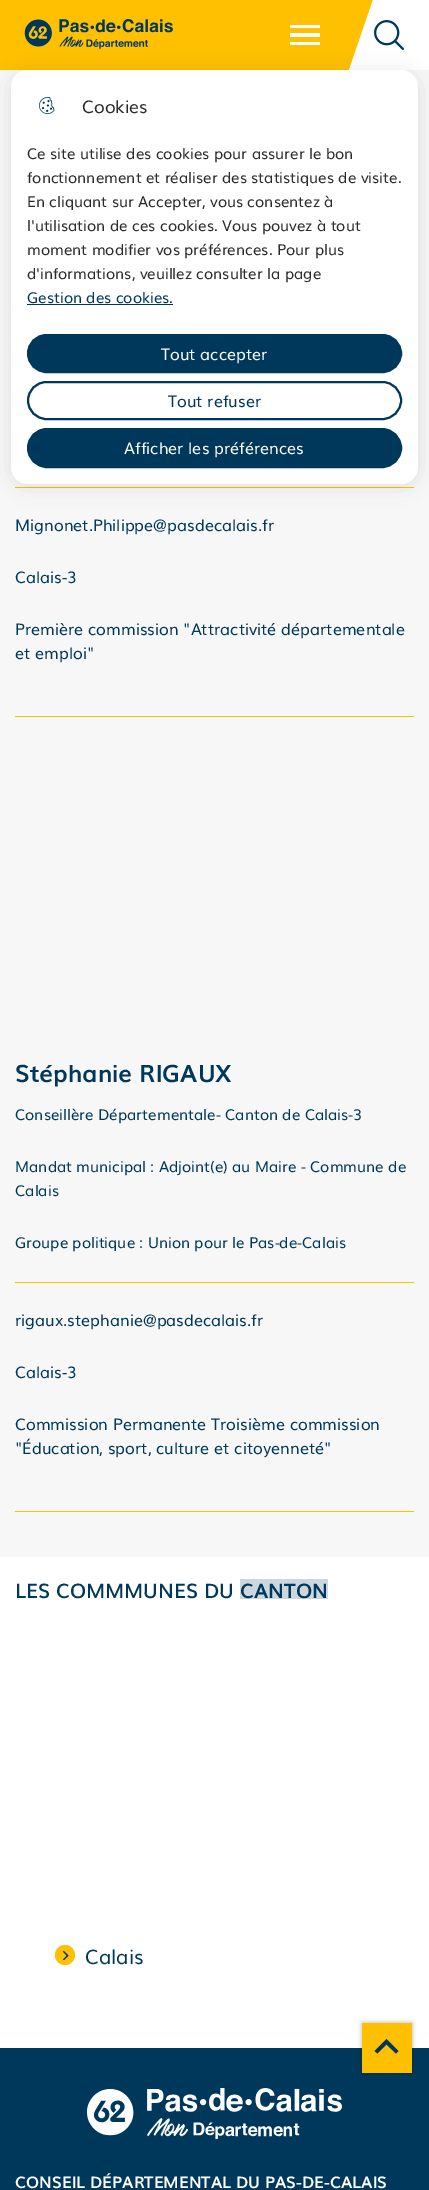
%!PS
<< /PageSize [429 2190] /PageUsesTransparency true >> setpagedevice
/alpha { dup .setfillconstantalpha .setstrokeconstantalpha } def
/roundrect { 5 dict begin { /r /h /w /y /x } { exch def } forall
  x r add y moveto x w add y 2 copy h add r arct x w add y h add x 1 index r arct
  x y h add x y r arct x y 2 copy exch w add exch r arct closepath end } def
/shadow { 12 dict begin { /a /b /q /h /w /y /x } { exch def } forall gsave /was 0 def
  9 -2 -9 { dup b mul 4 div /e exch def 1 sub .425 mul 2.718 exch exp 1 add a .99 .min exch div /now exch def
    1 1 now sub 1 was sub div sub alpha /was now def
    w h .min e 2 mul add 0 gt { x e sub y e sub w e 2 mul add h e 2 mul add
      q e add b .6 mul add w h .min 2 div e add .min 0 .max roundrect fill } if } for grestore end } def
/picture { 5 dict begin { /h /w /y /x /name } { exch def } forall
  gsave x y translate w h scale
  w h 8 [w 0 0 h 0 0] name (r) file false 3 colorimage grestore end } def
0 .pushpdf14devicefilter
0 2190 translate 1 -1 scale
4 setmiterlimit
1 setgray
0 0 429 2190 rectfill
0.8 0.843 0.871 setrgbcolor
240 1579 88 20 rectfill
0.996 0.753 0.004 setrgbcolor
0 0 373 70 rectfill
(img2.rgb) 24 19 149 30 picture
1 setgray
290 42 30 3 1 roundrect fill
newpath 373 0 moveto 349 70 lineto 429 70 lineto 429 0 lineto closepath fill
(img3.rgb) 374 20 30 30 picture
0.969 setgray
0 70 429 1487 rectfill
0.996 0.753 0.004 setrgbcolor
15 487 399 1 rectfill
0 setgray
11 72 407 414 17 10 0.1 shadow
1 setgray
11 70 407 414 17 roundrect fill
(img1.rgb) 39 97 16 17 picture
/Muli-Regular [17.5 0 0 -17.5 0 0] selectfont
0.169 setgray
82 113 moveto (Cookies) show
/Muli-Regular [15 0 0 -15 0 0] selectfont
27 159 moveto (Ce site utilise des cookies pour assurer le bon) show
27 183 moveto (fonctionnement et réaliser des statistiques de visite.) show
27 207 moveto (En cliquant sur Accepter, vous consentez à) show
27 231 moveto (l'utilisation de ces cookies. Vous pouvez à tout) show
27 255 moveto (moment modifier vos préférences. Pour plus) show
27 279 moveto (d'informations, veuillez consulter la page) show
0 0.22 0.357 setrgbcolor
27 303 moveto (Gestion des cookies.) show
27 304 146 1 rectfill
28 335 373 37 18.5 roundrect gsave fill grestore
2 setlinewidth
stroke
/Muli-Regular [16 0 0 -16 0 0] selectfont
1 setgray
161 360 moveto (Tout accepter) show
0 0.22 0.357 setrgbcolor
28 382 373 37 18.5 roundrect stroke
168 407 moveto (Tout refuser) show
28 429 373 38 19 roundrect gsave fill grestore
stroke
1 setgray
124 454 moveto (Afficher les préférences) show
290 25 30 3 1 roundrect fill
290 33 30 4 1 roundrect fill
0 0.22 0.357 setrgbcolor
15 531 moveto (Mignonet.Philippe@pasdecalais.fr) show
15 583 moveto (Calais-3) show
15 635 moveto (Première commission "Attractivité départementale) show
15 659 moveto (et emploi") show
0.996 0.753 0.004 setrgbcolor
15 716 399 1 rectfill
/Muli-Bold [24 0 0 -24 0 0] selectfont
0 0.22 0.357 setrgbcolor
15 1082 moveto (Stéphanie RIGAUX) show
/Muli-Regular [15 0 0 -15 0 0] selectfont
15 1120 moveto (Conseillère Départementale- Canton de Calais-3) show
15 1172 moveto (Mandat municipal : Adjoint\(e\) au Maire - Commune de) show
15 1196 moveto (Calais) show
15 1248 moveto (Groupe politique : Union pour le Pas-de-Calais) show
0.996 0.753 0.004 setrgbcolor
15 1282 399 1 rectfill
/Muli-Regular [16 0 0 -16 0 0] selectfont
0 0.22 0.357 setrgbcolor
15 1326 moveto (rigaux.stephanie@pasdecalais.fr) show
15 1378 moveto (Calais-3) show
15 1430 moveto (Commission Permanente Troisième commission) show
15 1454 moveto ("Éducation, sport, culture et citoyenneté") show
0.996 0.753 0.004 setrgbcolor
15 1511 399 1 rectfill
/Muli-SemiBold [20 0 0 -20 0 0] selectfont
0 0.22 0.357 setrgbcolor
15 1598 moveto (LES COMMMUNES DU) show
/Muli-Bold [20 0 0 -20 0 0] selectfont
240 1598 moveto (CANTON) show
0.996 0.753 0.004 setrgbcolor
newpath 65 1955 10 0 360 arc closepath fill
(img4.rgb) 63 1951 6 9 picture
/Muli-Regular [20 0 0 -20 0 0] selectfont
0 0.22 0.357 setrgbcolor
85 1964 moveto (Calais) show
0 2048 429 142 rectfill
0 setgray
362 2023 50 50 0 2.5 0.29 shadow
0.996 0.753 0.004 setrgbcolor
362 2023 50 50 rectfill
0 0.22 0.357 setrgbcolor
newpath 374.5 2051 moveto 377.5 2053.5 lineto 386.5 2044.5 lineto 396 2053.5 lineto 398.5 2051 lineto 386.5 2039 lineto closepath eofill
(img5.rgb) 87 2088 255 51 picture
/Muli-Bold [16 0 0 -16 0 0] selectfont
1 setgray
15 2188 moveto (CONSEIL DÉPARTEMENTAL DU PAS-DE-CALAIS) show
.poppdf14devicefilter showpage
